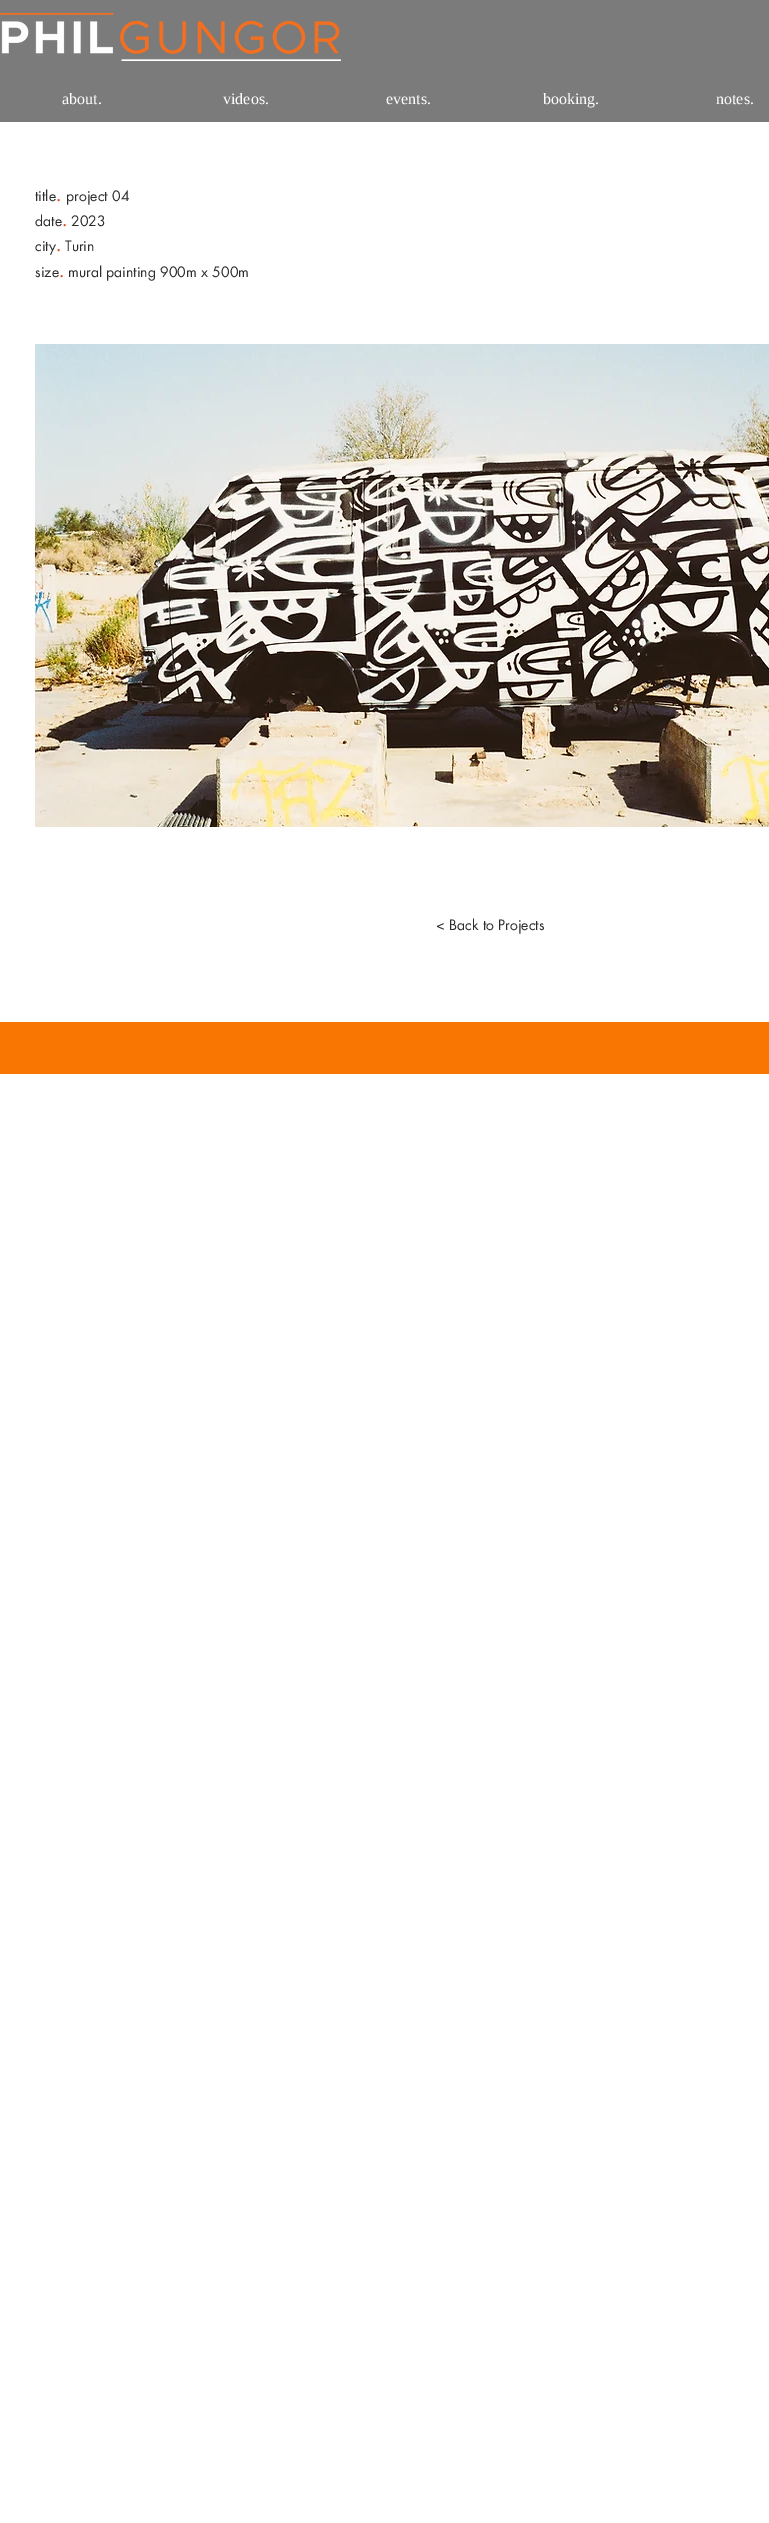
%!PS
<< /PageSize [769 2523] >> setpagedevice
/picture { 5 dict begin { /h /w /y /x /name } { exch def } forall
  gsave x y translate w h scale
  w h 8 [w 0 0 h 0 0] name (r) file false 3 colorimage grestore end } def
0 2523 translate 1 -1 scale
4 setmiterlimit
1 setgray
0 0 769 2523 rectfill
0.482 setgray
0 0 769 122 rectfill
(img1.rgb) 0 13 341 48 picture
/LiberationSerif-Regular [16 0 0 -16 0 0] selectfont
1 setgray
62 104 moveto (about.) show
223 104 moveto (videos.) show
386 104 moveto (events.) show
543 104 moveto (booking.) show
716 104 moveto (notes.) show
/futura-Regular [14 0 0 -14 0 0] selectfont
0.184 0.18 0.18 setrgbcolor
35 201 moveto (title) show
/futura-Bold [16 0 0 -16 0 0] selectfont
0.871 0.314 0.129 setrgbcolor
56 201 moveto (.) show
/futura-Regular [14 0 0 -14 0 0] selectfont
0.184 0.18 0.18 setrgbcolor
66 201 moveto (project 04) show
35 226 moveto (date) show
/futura-Bold [16 0 0 -16 0 0] selectfont
0.871 0.314 0.129 setrgbcolor
62 226 moveto (.) show
/futura-Regular [14 0 0 -14 0 0] selectfont
0.184 0.18 0.18 setrgbcolor
71 226 moveto (2023) show
35 251 moveto (city) show
/futura-Bold [16 0 0 -16 0 0] selectfont
0.871 0.314 0.129 setrgbcolor
56 251 moveto (.) show
/futura-Regular [14 0 0 -14 0 0] selectfont
0.184 0.18 0.18 setrgbcolor
65 251 moveto (Turin) show
35 277 moveto (size) show
/futura-Bold [16 0 0 -16 0 0] selectfont
0.871 0.314 0.129 setrgbcolor
59 277 moveto (.) show
/futura-Regular [14 0 0 -14 0 0] selectfont
0.184 0.18 0.18 setrgbcolor
68 277 moveto (mural painting 900m x 500m) show
(img2.rgb) 35 344 734 483 picture
436 930 moveto (< Back to Projects) show
0.98 0.463 0.008 setrgbcolor
0 1022 769 52 rectfill
showpage
